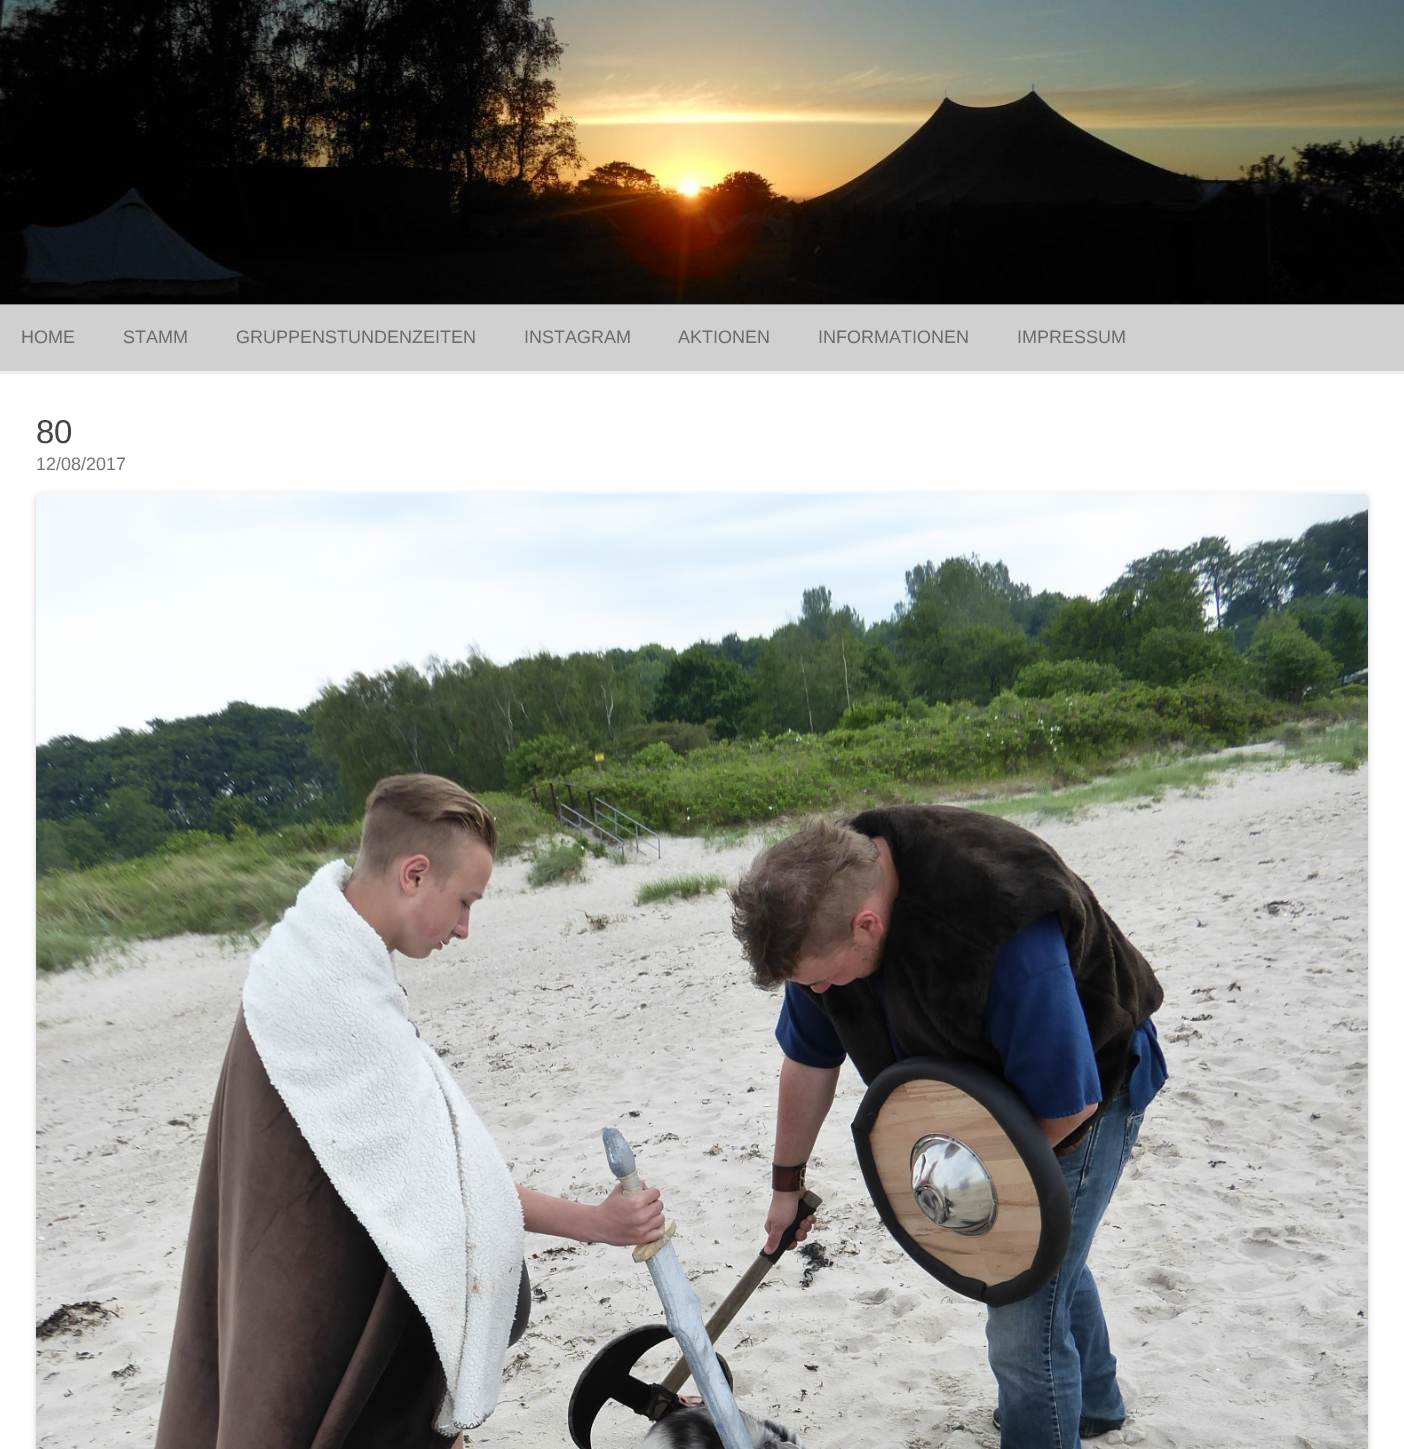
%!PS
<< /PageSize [1404 1449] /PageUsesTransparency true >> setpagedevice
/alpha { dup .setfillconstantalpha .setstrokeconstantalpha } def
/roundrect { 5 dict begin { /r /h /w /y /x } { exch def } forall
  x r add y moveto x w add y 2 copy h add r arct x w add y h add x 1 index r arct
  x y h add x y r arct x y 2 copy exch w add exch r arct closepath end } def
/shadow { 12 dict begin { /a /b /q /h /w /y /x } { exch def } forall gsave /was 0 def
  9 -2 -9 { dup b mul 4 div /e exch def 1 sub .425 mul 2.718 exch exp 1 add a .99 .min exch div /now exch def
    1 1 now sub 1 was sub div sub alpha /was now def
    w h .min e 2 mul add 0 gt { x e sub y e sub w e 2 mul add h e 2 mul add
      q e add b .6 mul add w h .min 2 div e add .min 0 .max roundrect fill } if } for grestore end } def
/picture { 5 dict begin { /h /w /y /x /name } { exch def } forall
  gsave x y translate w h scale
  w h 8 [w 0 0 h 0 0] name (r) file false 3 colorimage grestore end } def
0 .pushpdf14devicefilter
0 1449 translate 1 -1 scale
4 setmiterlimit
1 setgray
0 0 1404 1449 rectfill
(img1.rgb) 0 0 1404 305 picture
0.816 setgray
0 305 1404 66 rectfill
0.929 setgray
0 371 1404 3 rectfill
/LiberationSans-Regular [18 0 0 -18 0 0] selectfont
0.416 setgray
21 343 moveto (HOME) show
123 343 moveto (STAMM) show
236 343 moveto (GRUPPENSTUNDENZEITEN) show
524 343 moveto (INSTAGRAM) show
678 343 moveto (AKTIONEN) show
818 343 moveto (INFORMATIONEN) show
1017 343 moveto (IMPRESSUM) show
/LiberationSans-Regular [33 0 0 -33 0 0] selectfont
0.267 setgray
36 443 moveto (80) show
/LiberationSans-Regular [18 0 0 -18 0 0] selectfont
0.459 setgray
36 470 moveto (12/08/2017) show
0 setgray
36 495 1332 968 5 3 0.2 shadow
(img2.rgb) 36 493 1332 956 picture
.poppdf14devicefilter showpage
